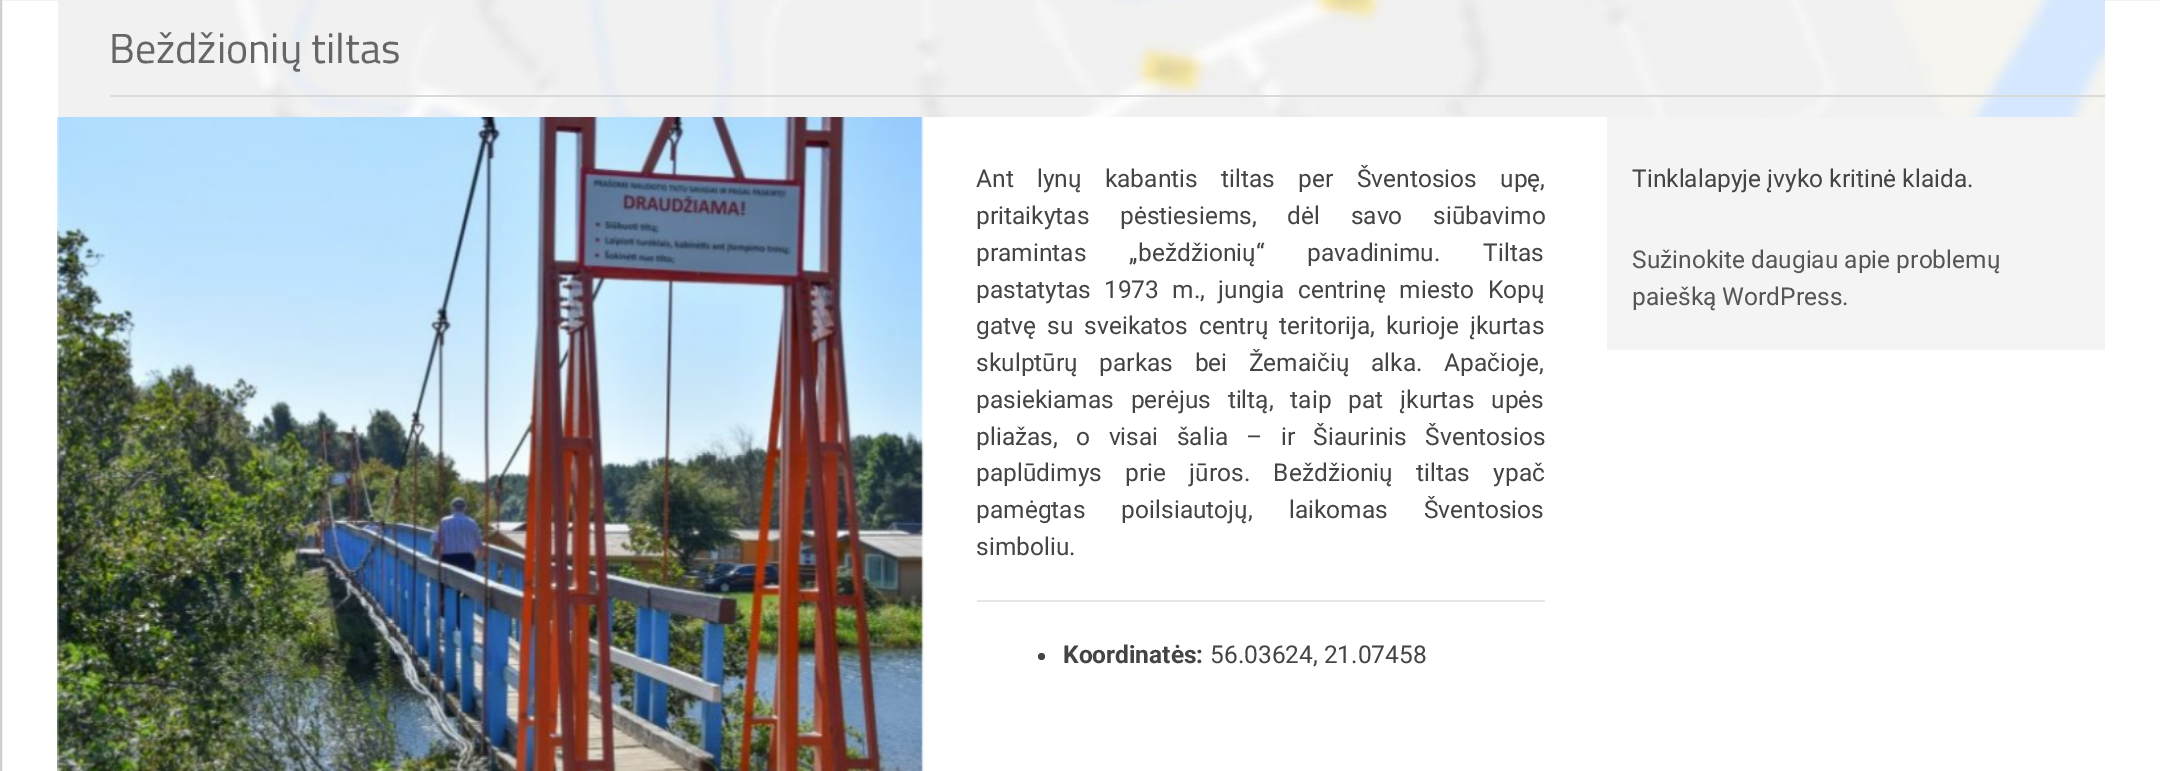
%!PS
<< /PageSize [2160 771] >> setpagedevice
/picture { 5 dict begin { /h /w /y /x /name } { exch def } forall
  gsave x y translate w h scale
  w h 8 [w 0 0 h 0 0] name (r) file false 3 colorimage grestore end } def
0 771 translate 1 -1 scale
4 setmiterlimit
1 setgray
0 0 2160 771 rectfill
0.8 0.816 0.831 setrgbcolor
2 setlinewidth
1 -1 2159 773 rectstroke
1 setgray
2159 0 1 771 rectfill
(img1.rgb) 58 0 2047 117 picture
0.855 setgray
110 95 1995 2 rectfill
/TitilliumWeb-Regular [42 0 0 -42 0 0] selectfont
0.4 setgray
109 63 moveto (Beždžionių tiltas) show
(img2.rgb) 57 117 867 654 picture
/Roboto-Regular [24.5 0 0 -24.5 0 0] selectfont
0.267 setgray
976 187 moveto 17.25 0 32 (Ant lynų kabantis tiltas per Šventosios upę,) widthshow
976 224 moveto 24.5 0 32 (pritaikytas pėstiesiems, dėl savo siūbavimo) widthshow
976 261 moveto 37 0 32 (pramintas „beždžionių“ pavadinimu. Tiltas) widthshow
976 298 moveto 7.25 0 32 (pastatytas 1973 m., jungia centrinę miesto Kopų) widthshow
976 334 moveto 5 0 32 (gatvę su sveikatos centrų teritorija, kurioje įkurtas) widthshow
976 371 moveto 15.5 0 32 (skulptūrų parkas bei Žemaičių alka. Apačioje,) widthshow
976 408 moveto 10.75 0 32 (pasiekiamas perėjus tiltą, taip pat įkurtas upės) widthshow
976 445 moveto 12.25 0 32 (pliažas, o visai šalia – ir Šiaurinis Šventosios) widthshow
976 481 moveto 17.25 0 32 (paplūdimys prie jūros. Beždžionių tiltas ypač) widthshow
976 518 moveto 30 0 32 (pamėgtas poilsiautojų, laikomas Šventosios) widthshow
976 555 moveto (simboliu.) show
0.902 setgray
977 600 568 2 rectfill
0.267 setgray
newpath 1041.5 656.5 3.5 0 360 arc closepath fill
/Roboto-Bold [24.5 0 0 -24.5 0 0] selectfont
1063 663 moveto (Koordinatės:) show
/Roboto-Regular [24.5 0 0 -24.5 0 0] selectfont
1210 663 moveto (56.03624, 21.07458) show
0.957 setgray
1607 117 498 233 rectfill
0.267 setgray
1632 187 moveto (Tinklalapyje įvyko kritinė klaida.) show
0.333 setgray
1632 268 moveto (Sužinokite daugiau apie problemų) show
1632 305 moveto (paiešką WordPress.) show
showpage
